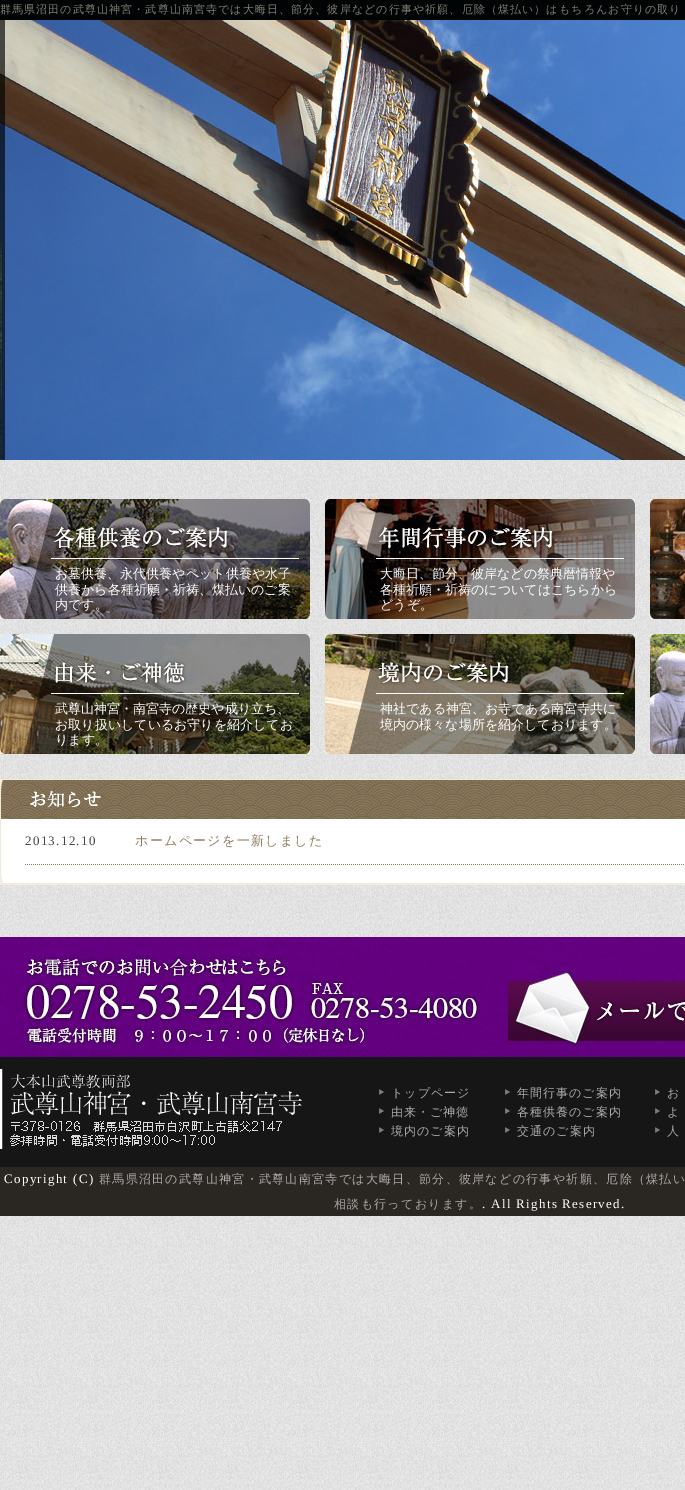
%!PS
<< /PageSize [685 1490] /PageUsesTransparency true >> setpagedevice
/alpha { dup .setfillconstantalpha .setstrokeconstantalpha } def
/picture { 5 dict begin { /h /w /y /x /name } { exch def } forall
  gsave x y translate w h scale
  w h 8 [w 0 0 h 0 0] name (r) file false 3 colorimage grestore end } def
0 .pushpdf14devicefilter
0 1490 translate 1 -1 scale
4 setmiterlimit
1 setgray
0 0 685 1490 rectfill
(img1.rgb) 0 460 685 1030 picture
0 0.016 0.02 setrgbcolor
0 0 685 20 rectfill
/WenQuanYiZenHei-Medium [11 0 0 -11 0 0] selectfont
0.51 0.49 0.455 setrgbcolor
0 13 moveto 1.1 0 (群馬県沼田の武尊山神宮・武尊山南宮寺では大晦日、節分、彼岸などの行事や祈願、厄除（煤払い）はもちろんお守りの取り) ashow
(img2.rgb) 0 20 685 440 picture
0.65 alpha
0 setgray
0 20 5 440 rectfill
1 alpha
(img3.rgb) 0 241 2 219 picture
(img4.rgb) 0 499 310 120 picture
/WenQuanYiZenHei-Medium [13 0 0 -13 0 0] selectfont
1 setgray
55 578 moveto (お墓供養、永代供養やペット供養や水子) show
55 594 moveto (供養から各種祈願・祈祷、煤払いのご案) show
55 609 moveto (内です。) show
(img5.rgb) 325 499 310 120 picture
380 578 moveto (大晦日、節分、彼岸などの祭典暦情報や) show
380 594 moveto (各種祈願・祈祷のについてはこちらから) show
380 609 moveto (どうぞ。) show
(img6.rgb) 650 499 35 120 picture
(img7.rgb) 0 634 310 120 picture
55 713 moveto (武尊山神宮・南宮寺の歴史や成り立ち、) show
55 729 moveto (お取り扱いしているお守りを紹介してお) show
55 744 moveto (ります。) show
(img8.rgb) 325 634 310 120 picture
380 713 moveto (神社である神宮、お寺である南宮寺共に) show
380 729 moveto (境内の様々な場所を紹介しております。) show
(img9.rgb) 650 634 35 120 picture
(img10.rgb) 0 819 685 46 picture
(img11.rgb) 0 779 685 40 picture
0.557 0.482 0.361 setrgbcolor
[1 1] 0 setdash
newpath 25 864.5 moveto 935 864.5 lineto stroke
/LiberationSerif-Regular [13 0 0 -13 0 0] selectfont
0.267 setgray
25 845 moveto 1.3 0 (2013.12.10) ashow
/WenQuanYiZenHei-Medium [13 0 0 -13 0 0] selectfont
0.557 0.482 0.361 setrgbcolor
135 845 moveto 1.3 0 (ホームページを一新しました) ashow
(img12.rgb) 0 865 685 20 picture
(img13.rgb) 0 937 685 230 picture
(img14.rgb) 0 937 496 120 picture
(img15.rgb) 510 937 174 36 picture
(img16.rgb) 508 973 177 72 picture
(img17.rgb) 0 1069 304 80 picture
(img18.rgb) 379 1089 6 7 picture
/WenQuanYiZenHei-Medium [12 0 0 -12 0 0] selectfont
0.667 setgray
391 1097 moveto 1 0 (トップページ) ashow
(img18.rgb) 379 1108 6 7 picture
391 1116 moveto 1 0 (由来・ご神徳) ashow
(img18.rgb) 379 1127 6 7 picture
391 1135 moveto 1 0 (境内のご案内) ashow
(img18.rgb) 505 1089 6 7 picture
517 1097 moveto 1 0 (年間行事のご案内) ashow
(img18.rgb) 505 1108 6 7 picture
517 1116 moveto 1 0 (各種供養のご案内) ashow
(img18.rgb) 505 1127 6 7 picture
517 1135 moveto 1 0 (交通のご案内) ashow
(img18.rgb) 655 1089 6 7 picture
667 1097 moveto 1 0 (お) ashow
(img18.rgb) 655 1108 6 7 picture
667 1116 moveto 1 0 (よ) ashow
(img18.rgb) 655 1127 6 7 picture
667 1135 moveto 1 0 (人) ashow
0.165 0.153 0.137 setrgbcolor
0 1167 685 49 rectfill
/LiberationSerif-Regular [13 0 0 -13 0 0] selectfont
1 setgray
4 1183 moveto 1.3 0 (Copyright \(C\)) ashow
/WenQuanYiZenHei-Medium [12 0 0 -12 0 0] selectfont
0.667 setgray
99 1183 moveto 1.3 0 (群馬県沼田の武尊山神宮・武尊山南宮寺では大晦日、節分、彼岸などの行事や祈願、厄除（煤払い) ashow
334 1208 moveto 1.3 0 (相談も行っております。) ashow
/LiberationSerif-Regular [13 0 0 -13 0 0] selectfont
1 setgray
482 1208 moveto 1.3 0 (. All Rights Reserved.) ashow
.poppdf14devicefilter showpage
